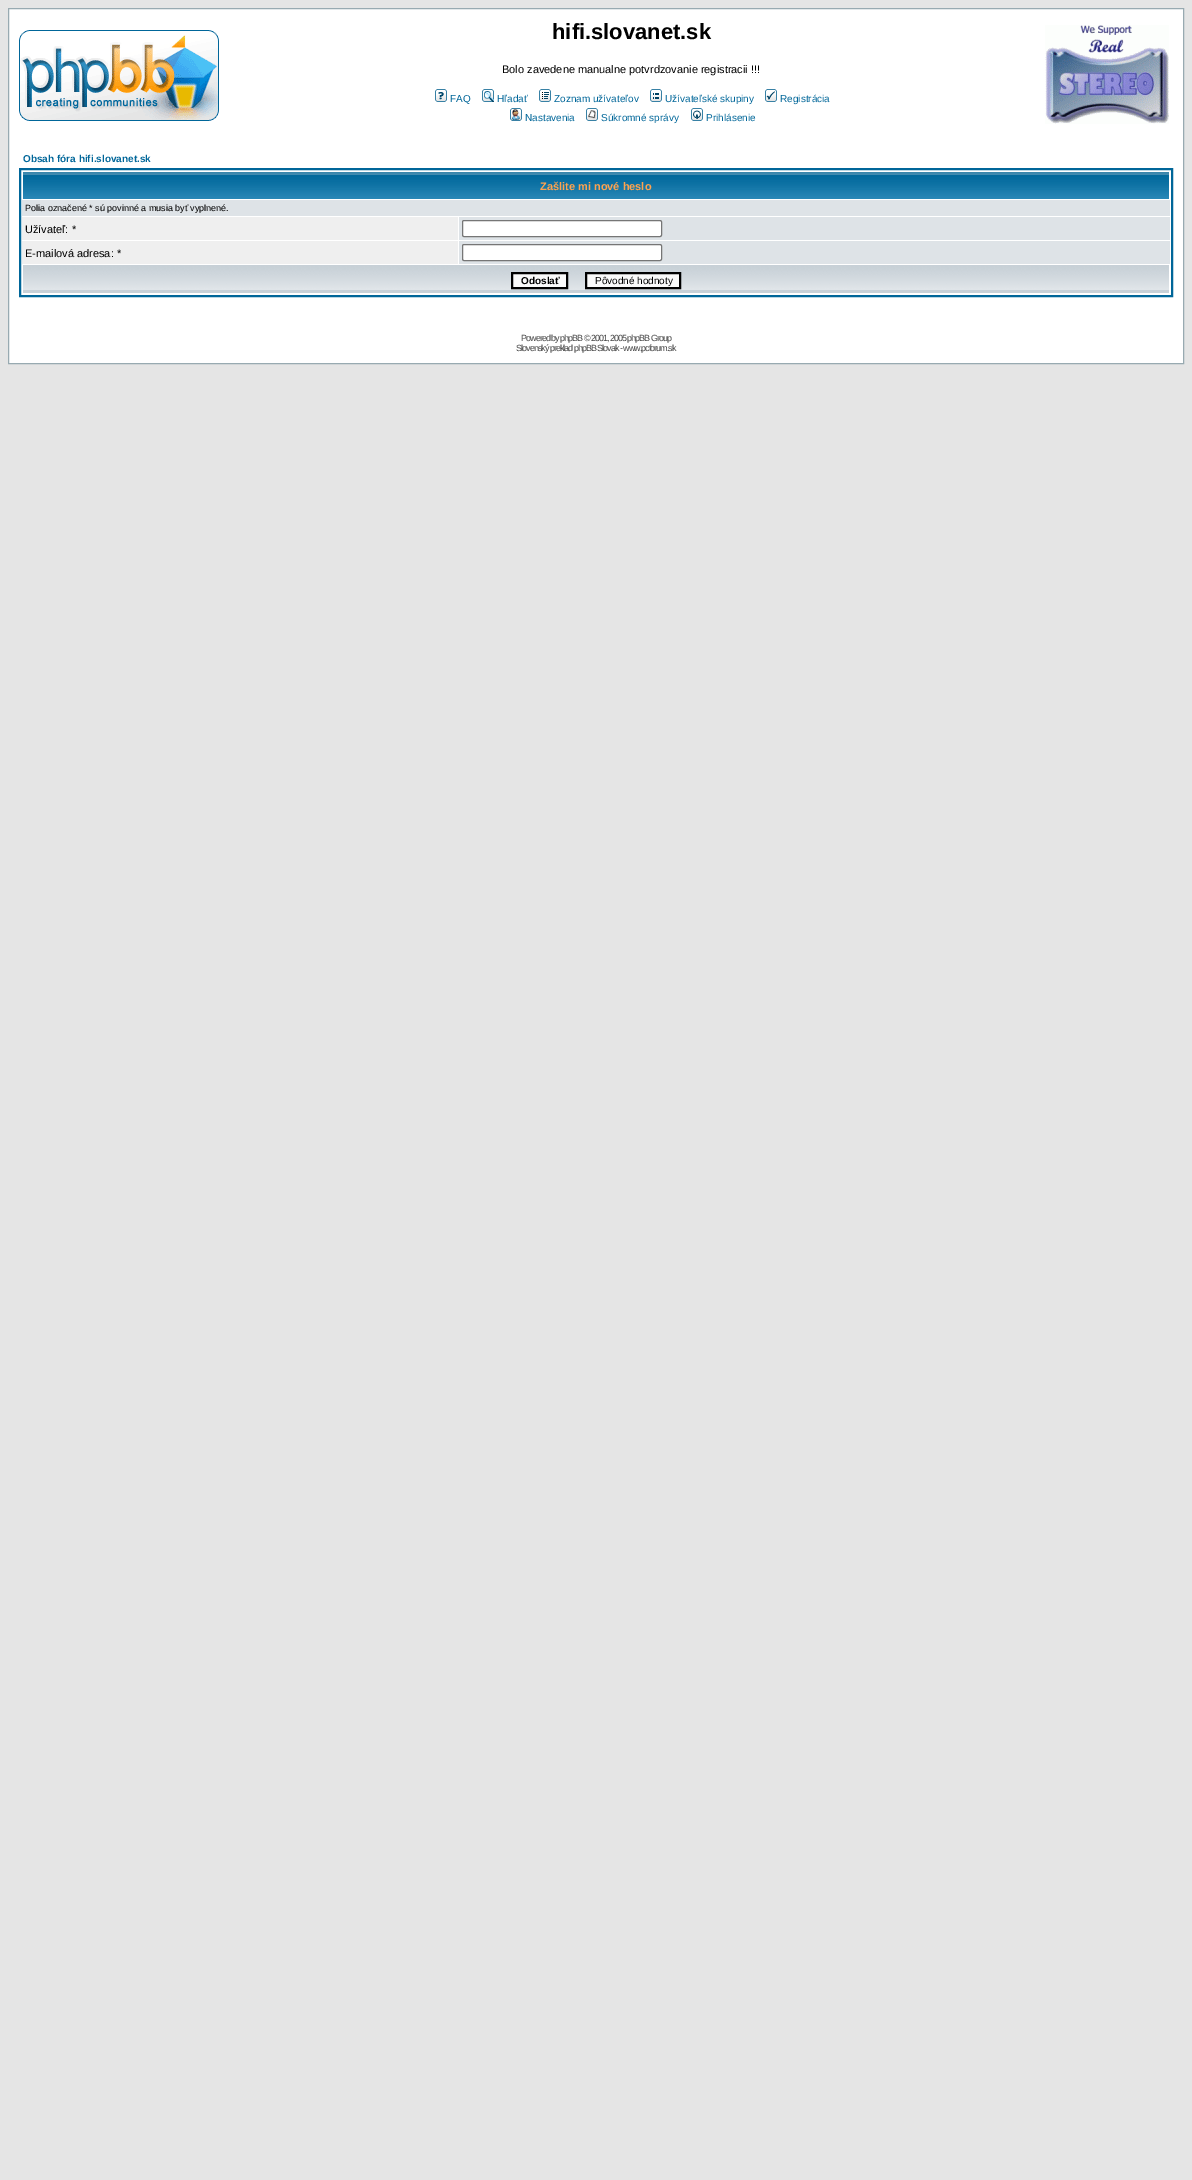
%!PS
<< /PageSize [1192 2180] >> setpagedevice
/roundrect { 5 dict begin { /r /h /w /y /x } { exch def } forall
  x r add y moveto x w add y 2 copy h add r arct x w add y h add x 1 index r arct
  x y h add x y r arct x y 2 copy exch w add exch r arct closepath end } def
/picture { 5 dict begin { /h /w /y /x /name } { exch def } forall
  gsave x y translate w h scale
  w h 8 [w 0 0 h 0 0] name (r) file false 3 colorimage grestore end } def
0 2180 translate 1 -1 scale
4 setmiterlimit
0.898 setgray
0 0 1192 2180 rectfill
1 setgray
newpath 8.5 8.5 moveto 1183.5 8.5 lineto 1183.5 363.5 lineto 8.5 363.5 lineto closepath gsave fill grestore
0.596 0.667 0.694 setrgbcolor
stroke
(img1.rgb) 19 30 200 91 picture
/LiberationSans-Bold [22 0 0 -22 0 0] selectfont
0 setgray
552 39 moveto (hifi.slovanet.sk) show
/LiberationSans-Regular [11 0 0 -11 0 0] selectfont
502 73 moveto (Bolo zavedene manualne potvrdzovanie registracii !!!) show
(img2.rgb) 435 89 12 13 picture
/LiberationSans-Regular [10 0 0 -10 0 0] selectfont
0 0.4 0.6 setrgbcolor
450 102 moveto (FAQ) show
(img3.rgb) 482 89 12 13 picture
497 102 moveto (Hľadať) show
(img4.rgb) 539 89 12 13 picture
554 102 moveto (Zoznam užívateľov) show
(img5.rgb) 650 89 12 13 picture
665 102 moveto (Užívateľské skupiny) show
(img6.rgb) 765 89 12 13 picture
780 102 moveto (Registrácia) show
(img7.rgb) 510 108 12 13 picture
525 121 moveto (Nastavenia) show
(img8.rgb) 586 108 12 13 picture
601 121 moveto (Súkromné správy) show
(img9.rgb) 691 108 12 13 picture
706 121 moveto (Prihlásenie) show
(img10.rgb) 1045 25 124 99 picture
/LiberationSans-Bold [10 0 0 -10 0 0] selectfont
23 162 moveto (Obsah fóra hifi.slovanet.sk) show
2 setlinewidth
20 169 1152 127 rectstroke
(img11.rgb) 23 172 1146 27 picture
/LiberationSans-Bold [11 0 0 -11 0 0] selectfont
1 0.639 0.31 setrgbcolor
540 190 moveto (Zašlite mi nové heslo) show
0.871 0.89 0.906 setrgbcolor
22 200 1148 16 rectfill
/LiberationSans-Regular [9 0 0 -9 0 0] selectfont
0 setgray
25 211 moveto (Polia označené * sú povinné a musia byť vyplnené.) show
0.937 setgray
22 217 436 23 rectfill
/LiberationSans-Regular [11 0 0 -11 0 0] selectfont
0 setgray
25 233 moveto (Užívateľ: *) show
0.871 0.89 0.906 setrgbcolor
459 217 711 23 rectfill
1 setgray
462.5 220.5 199 16 1.5 roundrect gsave fill grestore
0.463 setgray
1 setlinewidth
stroke
0.937 setgray
22 241 436 23 rectfill
0 setgray
25 257 moveto (E-mailová adresa: *) show
0.871 0.89 0.906 setrgbcolor
459 241 711 23 rectfill
1 setgray
462.5 244.5 199 16 1.5 roundrect gsave fill grestore
0.463 setgray
stroke
(img12.rgb) 23 265 1146 28 picture
0.98 setgray
newpath 512 273 moveto 567 273 lineto 567 288 lineto 512 288 lineto closepath gsave fill grestore
0 setgray
2 setlinewidth
stroke
/LiberationSans-Bold [10 0 0 -10 0 0] selectfont
521 284 moveto (Odoslať) show
0.98 setgray
newpath 586 273 moveto 680 273 lineto 680 288 lineto 586 288 lineto closepath gsave fill grestore
0 setgray
stroke
/LiberationSans-Regular [10 0 0 -10 0 0] selectfont
595 284 moveto (Pôvodné hodnoty) show
/LiberationSans-Regular [9 0 0 -9 0 0] selectfont
0.267 setgray
521 341 moveto -1 0 (Powered by phpBB © 2001, 2005 phpBB Group) ashow
516 351 moveto -1 0 (Slovenský preklad phpBB Slovak - www.pcforum.sk) ashow
showpage
